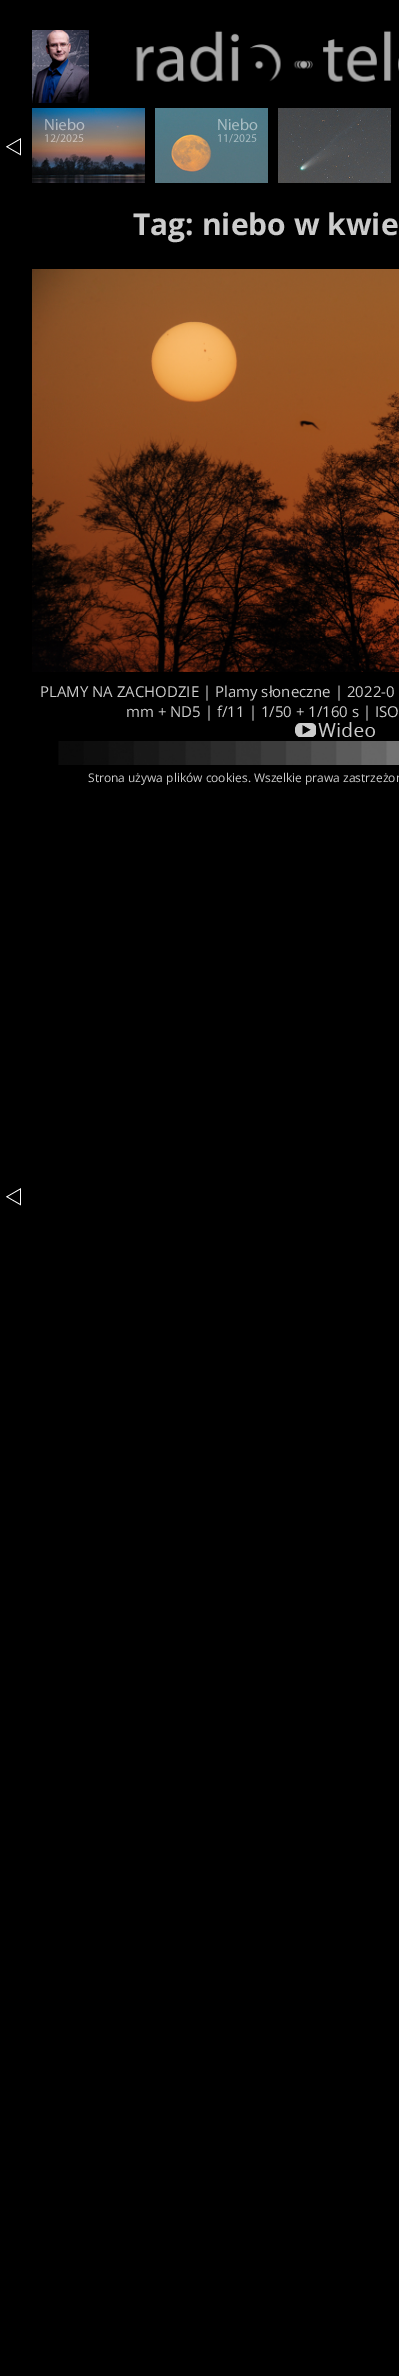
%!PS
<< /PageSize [399 2376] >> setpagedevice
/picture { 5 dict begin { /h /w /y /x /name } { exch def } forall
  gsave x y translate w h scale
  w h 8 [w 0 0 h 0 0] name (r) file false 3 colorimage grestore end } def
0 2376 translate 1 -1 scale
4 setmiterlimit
0 setgray
0 0 399 2376 rectfill
(img1.rgb) 32 30 57 73 picture
(img2.rgb) 136 30 263 52 picture
(img3.rgb) 6 138 15 18 picture
(img4.rgb) 32 108 113 75 picture
(img5.rgb) 155 108 113 75 picture
(img6.rgb) 278 108 113 75 picture
/OpenSans-Bold [30 0 0 -30 0 0] selectfont
0.8 setgray
133 235 moveto (Tag: niebo w kwie) show
(img7.rgb) 32 269 367 403 picture
/OpenSans-Regular [15 0 0 -15 0 0] selectfont
40 697 moveto (PLAMY NA ZACHODZIE | Plamy słoneczne | 2022-0) show
126 717 moveto (mm + ND5 | f/11 | 1/50 + 1/160 s | ISO) show
(img8.rgb) 295 722 80 15 picture
(img3.rgb) 6 1188 15 18 picture
(img9.rgb) 58 741 341 24 picture
/OpenSans-Regular [12 0 0 -12 0 0] selectfont
88 782 moveto (Strona używa plików cookies. Wszelkie prawa zastrzeżon) show
showpage
